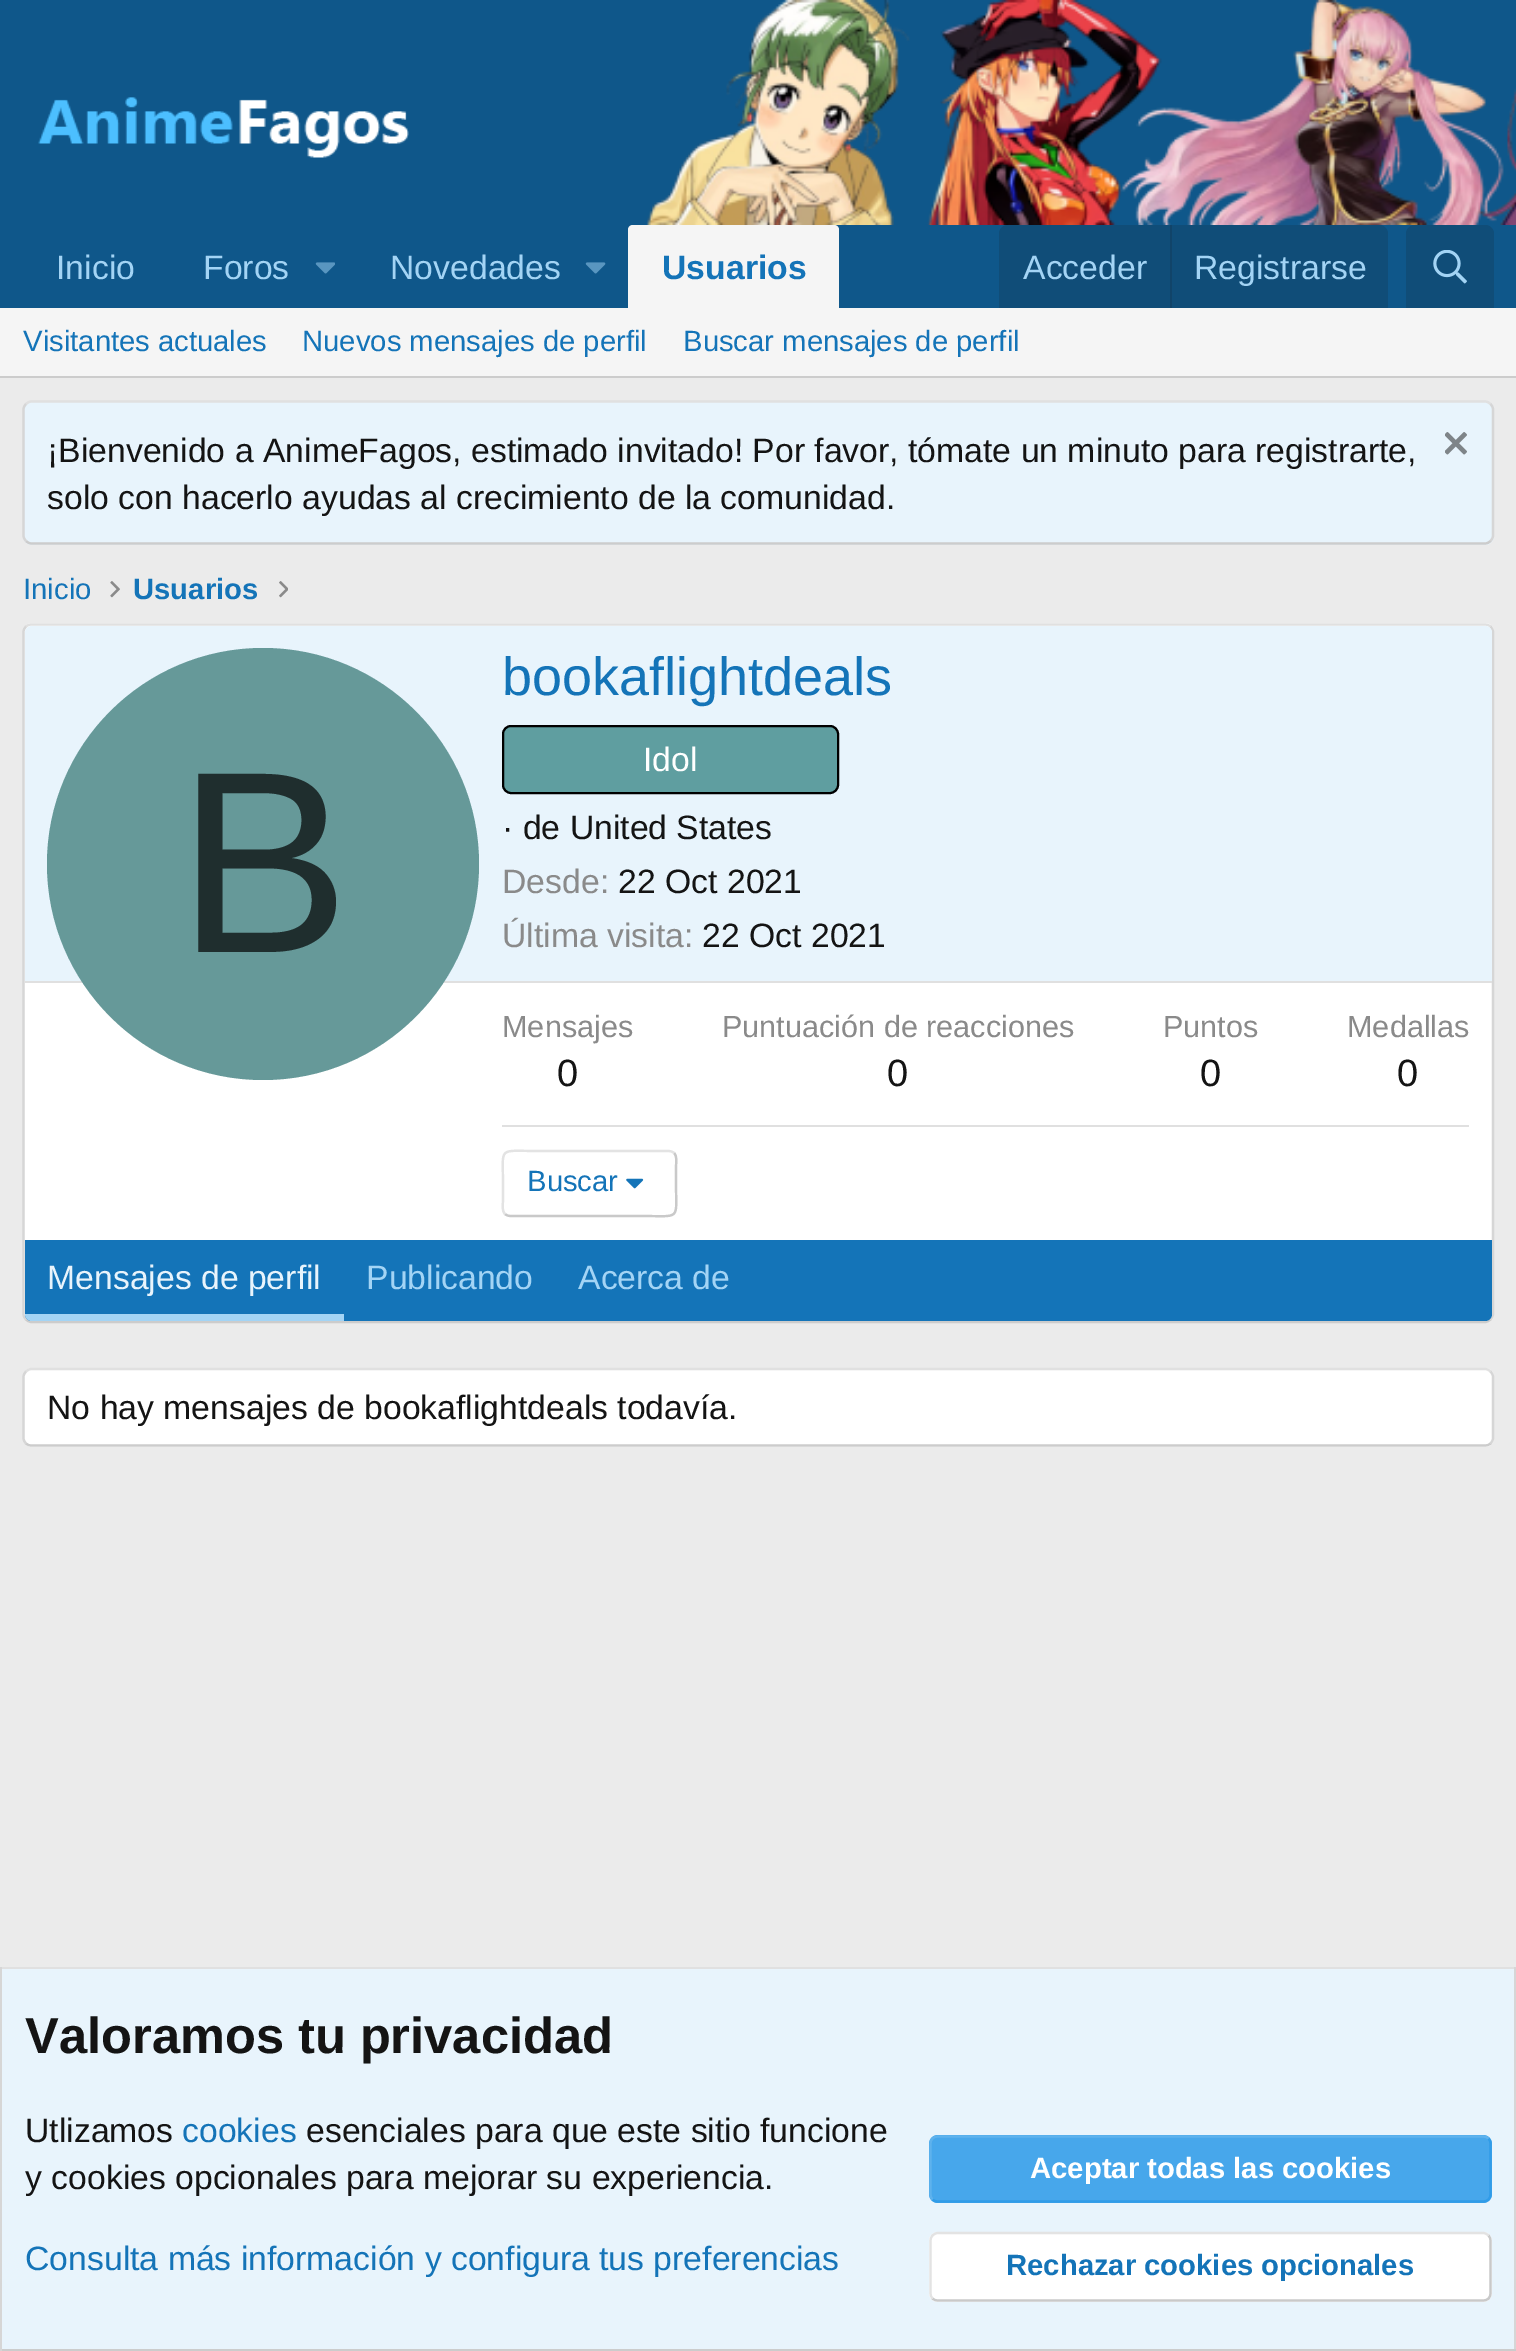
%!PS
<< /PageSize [1516 2351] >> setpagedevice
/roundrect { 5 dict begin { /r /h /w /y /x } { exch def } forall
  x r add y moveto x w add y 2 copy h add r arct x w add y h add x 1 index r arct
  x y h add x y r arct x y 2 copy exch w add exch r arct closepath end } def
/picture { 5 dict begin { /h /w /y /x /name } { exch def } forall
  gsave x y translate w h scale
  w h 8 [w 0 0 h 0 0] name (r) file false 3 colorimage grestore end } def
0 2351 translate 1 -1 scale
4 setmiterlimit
0.922 setgray
0 0 1516 2351 rectfill
0.059 0.341 0.541 setrgbcolor
0 0 1516 308 rectfill
(img1.rgb) 646 0 870 225 picture
(img2.rgb) 38 97 371 61 picture
/LiberationSans-Regular [33.75 0 0 -33.75 0 0] selectfont
0.639 0.831 0.961 setrgbcolor
56 279 moveto (Inicio) show
203 279 moveto (Foros) show
(img3.rgb) 315 262 20 12 picture
390 279 moveto (Novedades) show
(img4.rgb) 585 262 21 12 picture
0.961 setgray
newpath 633 225 moveto 834 225 lineto 837 225 839 227 839 230 curveto 839 308 lineto 628 308 lineto 628 230 lineto 628 227 630 225 633 225 curveto closepath fill
/LiberationSans-Bold [33.75 0 0 -33.75 0 0] selectfont
0.078 0.455 0.722 setrgbcolor
662 279 moveto (Usuarios) show
0.063 0.302 0.471 setrgbcolor
newpath 1008 225 moveto 1379 225 lineto 1384 225 1388 229 1388 234 curveto 1388 308 lineto 999 308 lineto 999 234 lineto 999 229 1003 225 1008 225 curveto closepath fill
/LiberationSans-Regular [33.75 0 0 -33.75 0 0] selectfont
0.639 0.831 0.961 setrgbcolor
1023 279 moveto (Acceder) show
0.067 0.267 0.412 setrgbcolor
1170 225 2 83 rectfill
0.639 0.831 0.961 setrgbcolor
1194 279 moveto (Registrarse) show
0.063 0.302 0.471 setrgbcolor
newpath 1415 225 moveto 1485 225 lineto 1490 225 1494 229 1494 234 curveto 1494 308 lineto 1406 308 lineto 1406 234 lineto 1406 229 1410 225 1415 225 curveto closepath fill
(img5.rgb) 1433 250 34 34 picture
0.961 setgray
0 308 1516 68 rectfill
0.8 setgray
0 376 1516 2 rectfill
/LiberationSans-Regular [29.25 0 0 -29.25 0 0] selectfont
0.078 0.455 0.722 setrgbcolor
23 351 moveto (Visitantes actuales) show
302 351 moveto (Nuevos mensajes de perfil) show
683 351 moveto (Buscar mensajes de perfil) show
0.91 0.957 0.988 setrgbcolor
23 401 1471 144 9 roundrect fill
0.878 setgray
2.2 setlinewidth
newpath 26 404 moveto 27.5 402.5 29.5 401.5 31.5 401.5 curveto 1485 401.5 lineto 1487 401.5 1489 402.5 1490.5 404 curveto stroke
0.839 setgray
newpath 1490.5 404 moveto 1492 405.5 1493 407.5 1493 409.5 curveto 1493 535.5 lineto 1493 537.5 1492 539.5 1490.5 541 curveto stroke
0.8 setgray
newpath 1490.5 541 moveto 1489 542.5 1487 543.5 1485 543.5 curveto 31.5 543.5 lineto 29.5 543.5 27.5 542.5 26 541 curveto stroke
0.839 setgray
newpath 26 541 moveto 24.5 539.5 23.5 537.5 23.5 535.5 curveto 23.5 409.5 lineto 23.5 407.5 24.5 405.5 26 404 curveto stroke
/LiberationSans-Regular [33.75 0 0 -33.75 0 0] selectfont
0.078 setgray
47 462 moveto (¡Bienvenido a AnimeFagos, estimado invitado! Por favor, tómate un minuto para registrarte,) show
(img6.rgb) 1445 432 22 23 picture
47 509 moveto (solo con hacerlo ayudas al crecimiento de la comunidad.) show
/LiberationSans-Regular [29.25 0 0 -29.25 0 0] selectfont
0.078 0.455 0.722 setrgbcolor
23 599 moveto (Inicio) show
(img7.rgb) 110 581 10 17 picture
/LiberationSans-Bold [29.25 0 0 -29.25 0 0] selectfont
133 599 moveto (Usuarios) show
(img8.rgb) 279 581 9 17 picture
1 setgray
23 623 1471 700 9 roundrect fill
0.878 setgray
newpath 26 626.5 moveto 27.5 625 29.5 624.5 31.5 624.5 curveto 1485 624.5 lineto 1487 624.5 1489 625 1490.5 626.5 curveto stroke
0.839 setgray
newpath 1490.5 626.5 moveto 1492 628 1493 630 1493 632 curveto 1493 1314 lineto 1493 1316 1492 1318 1490.5 1319.5 curveto stroke
0.8 setgray
newpath 1490.5 1319.5 moveto 1489 1321 1487 1322 1485 1322 curveto 31.5 1322 lineto 29.5 1322 27.5 1321 26 1319.5 curveto stroke
0.839 setgray
newpath 26 1319.5 moveto 24.5 1318 23.5 1316 23.5 1314 curveto 23.5 632 lineto 23.5 630 24.5 628 26 626.5 curveto stroke
0.91 0.957 0.988 setrgbcolor
newpath 32 626 moveto 1485 626 lineto 1489 626 1492 629 1492 633 curveto 1492 983 lineto 25 983 lineto 25 633 lineto 25 629 28 626 32 626 curveto closepath fill
0.878 setgray
25 981 1467 2 rectfill
0.4 0.6 0.6 setrgbcolor
newpath 263 864 216 0 360 arc closepath fill
/LiberationSans-Regular [259 0 0 -259 0 0] selectfont
0.122 0.18 0.18 setrgbcolor
177 952 moveto (B) show
/LiberationSans-Regular [54 0 0 -54 0 0] selectfont
0.078 0.455 0.722 setrgbcolor
502 695 moveto (bookaflightdeals) show
0.373 0.62 0.627 setrgbcolor
503 726 335 67 8 roundrect gsave fill grestore
0 setgray
2 setlinewidth
stroke
/LiberationSans-Regular [33.75 0 0 -33.75 0 0] selectfont
1 setgray
643 771 moveto (Idol) show
0.078 setgray
502 839 moveto (· de United States) show
0.541 setgray
502 893 moveto (Desde:) show
0.078 setgray
618 893 moveto (22 Oct 2021) show
0.541 setgray
502 947 moveto (Última visita:) show
0.078 setgray
702 947 moveto (22 Oct 2021) show
/LiberationSans-Regular [30.6 0 0 -30.6 0 0] selectfont
0.541 setgray
502 1037 moveto (Mensajes) show
/LiberationSans-Regular [38 0 0 -38 0 0] selectfont
0.078 setgray
557 1086 moveto (0) show
/LiberationSans-Regular [30.6 0 0 -30.6 0 0] selectfont
0.541 setgray
722 1037 moveto (Puntuación de reacciones) show
/LiberationSans-Regular [38 0 0 -38 0 0] selectfont
0.078 setgray
887 1086 moveto (0) show
/LiberationSans-Regular [30.6 0 0 -30.6 0 0] selectfont
0.541 setgray
1163 1037 moveto (Puntos) show
/LiberationSans-Regular [38 0 0 -38 0 0] selectfont
0.078 setgray
1200 1086 moveto (0) show
/LiberationSans-Regular [30.6 0 0 -30.6 0 0] selectfont
0.541 setgray
1347 1037 moveto (Medallas) show
/LiberationSans-Regular [38 0 0 -38 0 0] selectfont
0.078 setgray
1397 1086 moveto (0) show
0.878 setgray
502 1125 967 2 rectfill
0.788 setgray
2.2 setlinewidth
newpath 674 1153 moveto 677.5 1156.5 676 1162.5 676 1167 curveto 676 1183.5 lineto 676 1221 681.5 1216 642 1216 curveto 511 1216 lineto 508.5 1216 506.5 1215.5 505 1214 curveto stroke
0.89 setgray
newpath 505 1214 moveto 501.5 1210.5 503 1204.5 503 1200 curveto 503 1183.5 lineto 503 1146 497.5 1151 537 1151 curveto 668 1151 lineto 670.5 1151 672.5 1151.5 674 1153 curveto stroke
/LiberationSans-Regular [29.25 0 0 -29.25 0 0] selectfont
0.078 0.455 0.722 setrgbcolor
527 1191 moveto (Buscar) show
(img9.rgb) 626 1178 18 11 picture
newpath 25 1240 moveto 1492 1240 lineto 1492 1314 lineto 1492 1318 1489 1321 1485 1321 curveto 32 1321 lineto 28 1321 25 1318 25 1314 curveto closepath fill
0.639 0.831 0.961 setrgbcolor
newpath 25 1314 moveto 344 1314 lineto 344 1321 lineto 32 1321 lineto 28 1321 25 1318 25 1314 curveto closepath fill
/LiberationSans-Regular [33.75 0 0 -33.75 0 0] selectfont
0.91 0.957 0.988 setrgbcolor
47 1289 moveto (Mensajes de perfil) show
0.639 0.831 0.961 setrgbcolor
366 1289 moveto (Publicando) show
578 1289 moveto (Acerca de) show
1 setgray
23 1368 1471 79 9 roundrect fill
0.878 setgray
newpath 26 1371.5 moveto 27.5 1370 29.5 1369 31.5 1369 curveto 1485 1369 lineto 1487 1369 1489 1370 1490.5 1371.5 curveto stroke
0.839 setgray
newpath 1490.5 1371.5 moveto 1492 1373 1493 1375 1493 1377 curveto 1493 1438 lineto 1493 1440 1492 1442 1490.5 1443.5 curveto stroke
0.8 setgray
newpath 1490.5 1443.5 moveto 1489 1445 1487 1445.5 1485 1445.5 curveto 31.5 1445.5 lineto 29.5 1445.5 27.5 1445 26 1443.5 curveto stroke
0.839 setgray
newpath 26 1443.5 moveto 24.5 1442 23.5 1440 23.5 1438 curveto 23.5 1377 lineto 23.5 1375 24.5 1373 26 1371.5 curveto stroke
0.078 setgray
47 1419 moveto (No hay mensajes de bookaflightdeals todavía.) show
0.91 0.957 0.988 setrgbcolor
2 1969 1512 380 rectfill
0.878 setgray
0 1967 1516 2 rectfill
0.839 setgray
1514 1967 2 384 rectfill
0.8 setgray
0 2349 1516 2 rectfill
0.839 setgray
0 1967 2 384 rectfill
/LiberationSans-Bold [50.6 0 0 -50.6 0 0] selectfont
0.078 setgray
25 2053 moveto (Valoramos tu privacidad) show
/LiberationSans-Regular [33.75 0 0 -33.75 0 0] selectfont
25 2142 moveto (Utlizamos) show
0.078 0.455 0.722 setrgbcolor
182 2142 moveto (cookies) show
0.078 setgray
306 2142 moveto (esenciales para que este sitio funcione) show
25 2189 moveto (y cookies opcionales para mejorar su experiencia.) show
0.078 0.455 0.722 setrgbcolor
25 2270 moveto (Consulta más información y configura tus preferencias) show
0.278 0.655 0.922 setrgbcolor
929 2135 563 68 9 roundrect fill
0.188 0.612 0.91 setrgbcolor
newpath 1488.5 2138.5 moveto 1490 2140 1490.5 2142 1490.5 2144 curveto 1490.5 2194 lineto 1490.5 2196 1490 2198 1488.5 2199.5 curveto 1487 2201 1485 2201.5 1483 2201.5 curveto 938 2201.5 lineto 936 2201.5 934 2201 932.5 2199.5 curveto stroke
0.369 0.698 0.929 setrgbcolor
newpath 932.5 2199.5 moveto 931 2198 930.5 2196 930.5 2194 curveto 930.5 2144 lineto 930.5 2142 931 2140 932.5 2138.5 curveto 934 2137 936 2136.5 938 2136.5 curveto 1483 2136.5 lineto 1485 2136.5 1487 2137 1488.5 2138.5 curveto stroke
/LiberationSans-Bold [29.25 0 0 -29.25 0 0] selectfont
1 setgray
1030 2178 moveto (Aceptar todas las cookies) show
929 2232 563 70 9 roundrect fill
0.788 setgray
newpath 1488.5 2235.5 moveto 1490 2237 1490.5 2239 1490.5 2241 curveto 1490.5 2293 lineto 1490.5 2295 1490 2297 1488.5 2298.5 curveto 1487 2300 1485 2300.5 1483 2300.5 curveto 938 2300.5 lineto 936 2300.5 934 2300 932.5 2298.5 curveto stroke
0.89 setgray
newpath 932.5 2298.5 moveto 931 2297 930.5 2295 930.5 2293 curveto 930.5 2241 lineto 930.5 2239 931 2237 932.5 2235.5 curveto 934 2234 936 2233 938 2233 curveto 1483 2233 lineto 1485 2233 1487 2234 1488.5 2235.5 curveto stroke
0.078 0.455 0.722 setrgbcolor
1006 2275 moveto (Rechazar cookies opcionales) show
showpage
